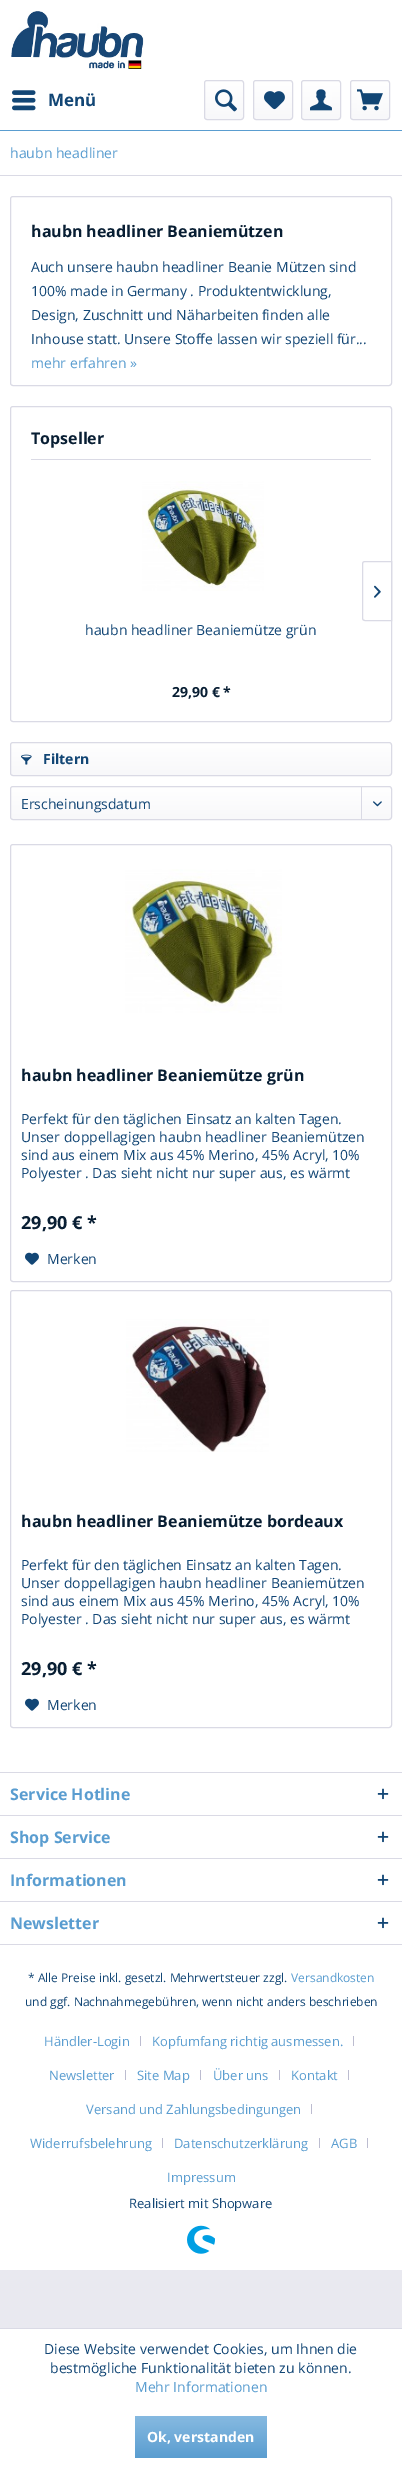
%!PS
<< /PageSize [402 2468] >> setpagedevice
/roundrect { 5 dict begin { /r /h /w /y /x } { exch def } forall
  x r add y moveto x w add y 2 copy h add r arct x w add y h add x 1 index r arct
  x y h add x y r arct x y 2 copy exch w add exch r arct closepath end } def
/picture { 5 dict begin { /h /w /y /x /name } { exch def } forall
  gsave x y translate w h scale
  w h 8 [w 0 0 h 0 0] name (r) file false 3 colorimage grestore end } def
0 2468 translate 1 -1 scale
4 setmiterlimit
0.914 0.914 0.941 setrgbcolor
0 0 402 2468 rectfill
1 setgray
0 0 402 130 rectfill
0.353 0.616 0.816 setrgbcolor
0 130 402 1 rectfill
(img1.rgb) 11 11 133 58 picture
(img2.rgb) 12 90 24 21 picture
/OpenSans-Bold [17 0 0 -17 0 0] selectfont
0.071 0.275 0.459 setrgbcolor
48 106 moveto (Menü) show
gsave 205 81 38 38 2 roundrect clip newpath
<< /ShadingType 2 /ColorSpace /DeviceRGB /Coords [224 81 224 119] /Extend [true true] /Function << /FunctionType 2 /Domain [0 1] /C0 [1 1 1] /C1 [0.973 0.973 0.98] /N 1 >> >> shfill grestore
0.855 0.855 0.898 setrgbcolor
204.5 80.5 39 39 2.5 roundrect stroke
(img3.rgb) 215 89 22 23 picture
gsave 254 81 38 38 2 roundrect clip newpath
<< /ShadingType 2 /ColorSpace /DeviceRGB /Coords [273 81 273 119] /Extend [true true] /Function << /FunctionType 2 /Domain [0 1] /C0 [1 1 1] /C1 [0.973 0.973 0.98] /N 1 >> >> shfill grestore
253.5 80.5 39 39 2.5 roundrect stroke
(img4.rgb) 264 91 21 19 picture
gsave 302 81 38 38 2 roundrect clip newpath
<< /ShadingType 2 /ColorSpace /DeviceRGB /Coords [321 81 321 119] /Extend [true true] /Function << /FunctionType 2 /Domain [0 1] /C0 [1 1 1] /C1 [0.973 0.973 0.98] /N 1 >> >> shfill grestore
301.5 80.5 39 39 2.5 roundrect stroke
(img5.rgb) 310 89 22 22 picture
gsave 351 81 38 38 2 roundrect clip newpath
<< /ShadingType 2 /ColorSpace /DeviceRGB /Coords [370 81 370 119] /Extend [true true] /Function << /FunctionType 2 /Domain [0 1] /C0 [1 1 1] /C1 [0.973 0.973 0.98] /N 1 >> >> shfill grestore
350.5 80.5 39 39 2.5 roundrect stroke
(img6.rgb) 357 89 26 22 picture
1 setgray
0 131 402 1641 rectfill
0.855 0.855 0.898 setrgbcolor
0 175 402 1 rectfill
/OpenSans-Regular [14 0 0 -14 0 0] selectfont
0.353 0.616 0.816 setrgbcolor
10 158 moveto (haubn headliner) show
0.855 0.855 0.898 setrgbcolor
10.5 196.5 381 189 2.5 roundrect stroke
/OpenSans-Bold [16 0 0 -16 0 0] selectfont
0.031 0.118 0.2 setrgbcolor
31 237 moveto (haubn headliner Beaniemützen) show
/OpenSans-Regular [14 0 0 -14 0 0] selectfont
0.071 0.275 0.459 setrgbcolor
31 272 moveto (Auch unsere haubn headliner Beanie Mützen sind) show
31 296 moveto (100% made in Germany . Produktentwicklung,) show
31 320 moveto (Design, Zuschnitt und Näharbeiten finden alle) show
31 344 moveto (Inhouse statt. Unsere Stoffe lassen wir speziell für...) show
0.353 0.616 0.816 setrgbcolor
31 368 moveto (mehr erfahren ») show
0.855 0.855 0.898 setrgbcolor
10.5 406.5 381 315 2.5 roundrect stroke
31 459 340 1 rectfill
/OpenSans-Bold [16 0 0 -16 0 0] selectfont
0.031 0.118 0.2 setrgbcolor
31 444 moveto (Topseller) show
0.855 0.855 0.898 setrgbcolor
newpath 365 561.5 moveto 391.5 561.5 lineto 391.5 620.5 lineto 365 620.5 lineto 363.5 620.5 362.5 619.5 362.5 618 curveto 362.5 564 lineto 362.5 562.5 363.5 561.5 365 561.5 curveto closepath stroke
(img7.rgb) 374 585 7 13 picture
(img8.rgb) 142 481 122 110 picture
/OpenSans-Regular [14 0 0 -14 0 0] selectfont
0.071 0.275 0.459 setrgbcolor
85 635 moveto (haubn headliner Beaniemütze grün) show
/OpenSans-Bold [14 0 0 -14 0 0] selectfont
0.031 0.118 0.2 setrgbcolor
172 697 moveto (29,90 € *) show
gsave 11 743 380 32 2 roundrect clip newpath
<< /ShadingType 2 /ColorSpace /DeviceRGB /Coords [201 743 201 775] /Extend [true true] /Function << /FunctionType 2 /Domain [0 1] /C0 [1 1 1] /C1 [0.973 0.973 0.98] /N 1 >> >> shfill grestore
0.855 0.855 0.898 setrgbcolor
10.5 742.5 381 33 2.5 roundrect stroke
(img9.rgb) 21 754 11 11 picture
0.071 0.275 0.459 setrgbcolor
43 764 moveto (Filtern) show
gsave 11 787 380 32 2 roundrect clip newpath
<< /ShadingType 2 /ColorSpace /DeviceRGB /Coords [201 787 201 819] /Extend [true true] /Function << /FunctionType 2 /Domain [0 1] /C0 [1 1 1] /C1 [0.973 0.973 0.98] /N 1 >> >> shfill grestore
0.855 0.855 0.898 setrgbcolor
10.5 786.5 381 33 2.5 roundrect stroke
/OpenSans-Regular [14 0 0 -14 0 0] selectfont
0.071 0.275 0.459 setrgbcolor
21 809 moveto (Erscheinungsdatum) show
0.855 0.855 0.898 setrgbcolor
361 787 1 33 rectfill
(img10.rgb) 373 801 9 6 picture
10.5 844.5 381 437 2.5 roundrect stroke
(img11.rgb) 125 869 157 144 picture
/OpenSans-Bold [16 0 0 -16 0 0] selectfont
0.031 0.118 0.2 setrgbcolor
21 1081 moveto (haubn headliner Beaniemütze grün) show
/OpenSans-Regular [14 0 0 -14 0 0] selectfont
0.071 0.275 0.459 setrgbcolor
21 1124 moveto (Perfekt für den täglichen Einsatz an kalten Tagen.) show
21 1142 moveto (Unser doppellagigen haubn headliner Beaniemützen) show
21 1160 moveto (sind aus einem Mix aus 45% Merino, 45% Acryl, 10%) show
21 1178 moveto (Polyester . Das sieht nicht nur super aus, es wärmt) show
/OpenSans-Bold [18 0 0 -18 0 0] selectfont
0.031 0.118 0.2 setrgbcolor
21 1229 moveto (29,90 € *) show
(img12.rgb) 25 1252 14 13 picture
/OpenSans-Regular [14 0 0 -14 0 0] selectfont
0.071 0.275 0.459 setrgbcolor
47 1264 moveto (Merken) show
0.855 0.855 0.898 setrgbcolor
10.5 1290.5 381 437 2.5 roundrect stroke
(img13.rgb) 126 1319 143 133 picture
/OpenSans-Bold [16 0 0 -16 0 0] selectfont
0.031 0.118 0.2 setrgbcolor
21 1527 moveto (haubn headliner Beaniemütze bordeaux) show
/OpenSans-Regular [14 0 0 -14 0 0] selectfont
0.071 0.275 0.459 setrgbcolor
21 1570 moveto (Perfekt für den täglichen Einsatz an kalten Tagen.) show
21 1588 moveto (Unser doppellagigen haubn headliner Beaniemützen) show
21 1606 moveto (sind aus einem Mix aus 45% Merino, 45% Acryl, 10%) show
21 1624 moveto (Polyester . Das sieht nicht nur super aus, es wärmt) show
/OpenSans-Bold [18 0 0 -18 0 0] selectfont
0.031 0.118 0.2 setrgbcolor
21 1675 moveto (29,90 € *) show
(img12.rgb) 25 1698 14 13 picture
/OpenSans-Regular [14 0 0 -14 0 0] selectfont
0.071 0.275 0.459 setrgbcolor
47 1710 moveto (Merken) show
1 setgray
0 1773 402 497 rectfill
0.855 0.855 0.898 setrgbcolor
0 1772 402 1 rectfill
/OpenSans-Bold [16 0 0 -16 0 0] selectfont
0.353 0.616 0.816 setrgbcolor
10 1800 moveto (Service Hotline) show
(img14.rgb) 377 1788 12 12 picture
0.855 0.855 0.898 setrgbcolor
0 1815 402 1 rectfill
0.353 0.616 0.816 setrgbcolor
10 1843 moveto (Shop Service) show
(img14.rgb) 377 1831 12 12 picture
0.855 0.855 0.898 setrgbcolor
0 1858 402 1 rectfill
0.353 0.616 0.816 setrgbcolor
10 1886 moveto (Informationen) show
(img14.rgb) 377 1874 12 12 picture
0.855 0.855 0.898 setrgbcolor
0 1901 402 1 rectfill
0 1944 402 1 rectfill
0.353 0.616 0.816 setrgbcolor
10 1929 moveto (Newsletter) show
(img14.rgb) 377 1917 12 12 picture
/OpenSans-Regular [12 0 0 -12 0 0] selectfont
0.071 0.275 0.459 setrgbcolor
28 1982 moveto (* Alle Preise inkl. gesetzl. Mehrwertsteuer zzgl.) show
0.353 0.616 0.816 setrgbcolor
291 1982 moveto (Versandkosten) show
0.071 0.275 0.459 setrgbcolor
25 2006 moveto (und ggf. Nachnahmegebühren, wenn nicht anders beschrieben) show
/OpenSans-Regular [13 0 0 -13 0 0] selectfont
0.353 0.616 0.816 setrgbcolor
44 2046 moveto (Händler-Login) show
0.737 0.737 0.816 setrgbcolor
140 2036 1 10 rectfill
0.353 0.616 0.816 setrgbcolor
152 2046 moveto (Kopfumfang richtig ausmessen.) show
0.737 0.737 0.816 setrgbcolor
353 2036 1 10 rectfill
0.353 0.616 0.816 setrgbcolor
49 2080 moveto (Newsletter) show
0.737 0.737 0.816 setrgbcolor
125 2070 1 10 rectfill
0.353 0.616 0.816 setrgbcolor
137 2080 moveto (Site Map) show
0.737 0.737 0.816 setrgbcolor
200 2070 1 10 rectfill
0.353 0.616 0.816 setrgbcolor
213 2080 moveto (Über uns) show
0.737 0.737 0.816 setrgbcolor
279 2070 1 10 rectfill
0.353 0.616 0.816 setrgbcolor
291 2080 moveto (Kontakt) show
0.737 0.737 0.816 setrgbcolor
348 2070 1 10 rectfill
0.353 0.616 0.816 setrgbcolor
86 2114 moveto (Versand und Zahlungsbedingungen) show
0.737 0.737 0.816 setrgbcolor
311 2104 1 10 rectfill
0.353 0.616 0.816 setrgbcolor
30 2148 moveto (Widerrufsbelehrung) show
0.737 0.737 0.816 setrgbcolor
162 2138 1 10 rectfill
0.353 0.616 0.816 setrgbcolor
174 2148 moveto (Datenschutzerklärung) show
0.737 0.737 0.816 setrgbcolor
319 2138 1 10 rectfill
0.353 0.616 0.816 setrgbcolor
331 2148 moveto (AGB) show
0.737 0.737 0.816 setrgbcolor
367 2138 1 10 rectfill
0.353 0.616 0.816 setrgbcolor
167 2182 moveto (Impressum) show
0.071 0.275 0.459 setrgbcolor
129 2208 moveto (Realisiert mit Shopware) show
(img15.rgb) 187 2225 28 29 picture
1 setgray
0 2329 402 139 rectfill
0.855 0.855 0.898 setrgbcolor
0 2328 402 1 rectfill
/OpenSans-Regular [14 0 0 -14 0 0] selectfont
0.071 0.275 0.459 setrgbcolor
44 2354 moveto (Diese Website verwendet Cookies, um Ihnen die) show
50 2373 moveto (bestmögliche Funktionalität bieten zu können.) show
0.353 0.616 0.816 setrgbcolor
135 2392 moveto (Mehr Informationen) show
gsave 135 2416 132 42 3 roundrect clip newpath
<< /ShadingType 2 /ColorSpace /DeviceRGB /Coords [201 2416 201 2458] /Extend [true true] /Function << /FunctionType 2 /Domain [0 1] /C0 [0.525 0.729 0.882] /C1 [0.353 0.616 0.816] /N 1 >> >> shfill grestore
/OpenSans-Bold [14 0 0 -14 0 0] selectfont
1 setgray
147 2442 moveto (Ok, verstanden) show
showpage
